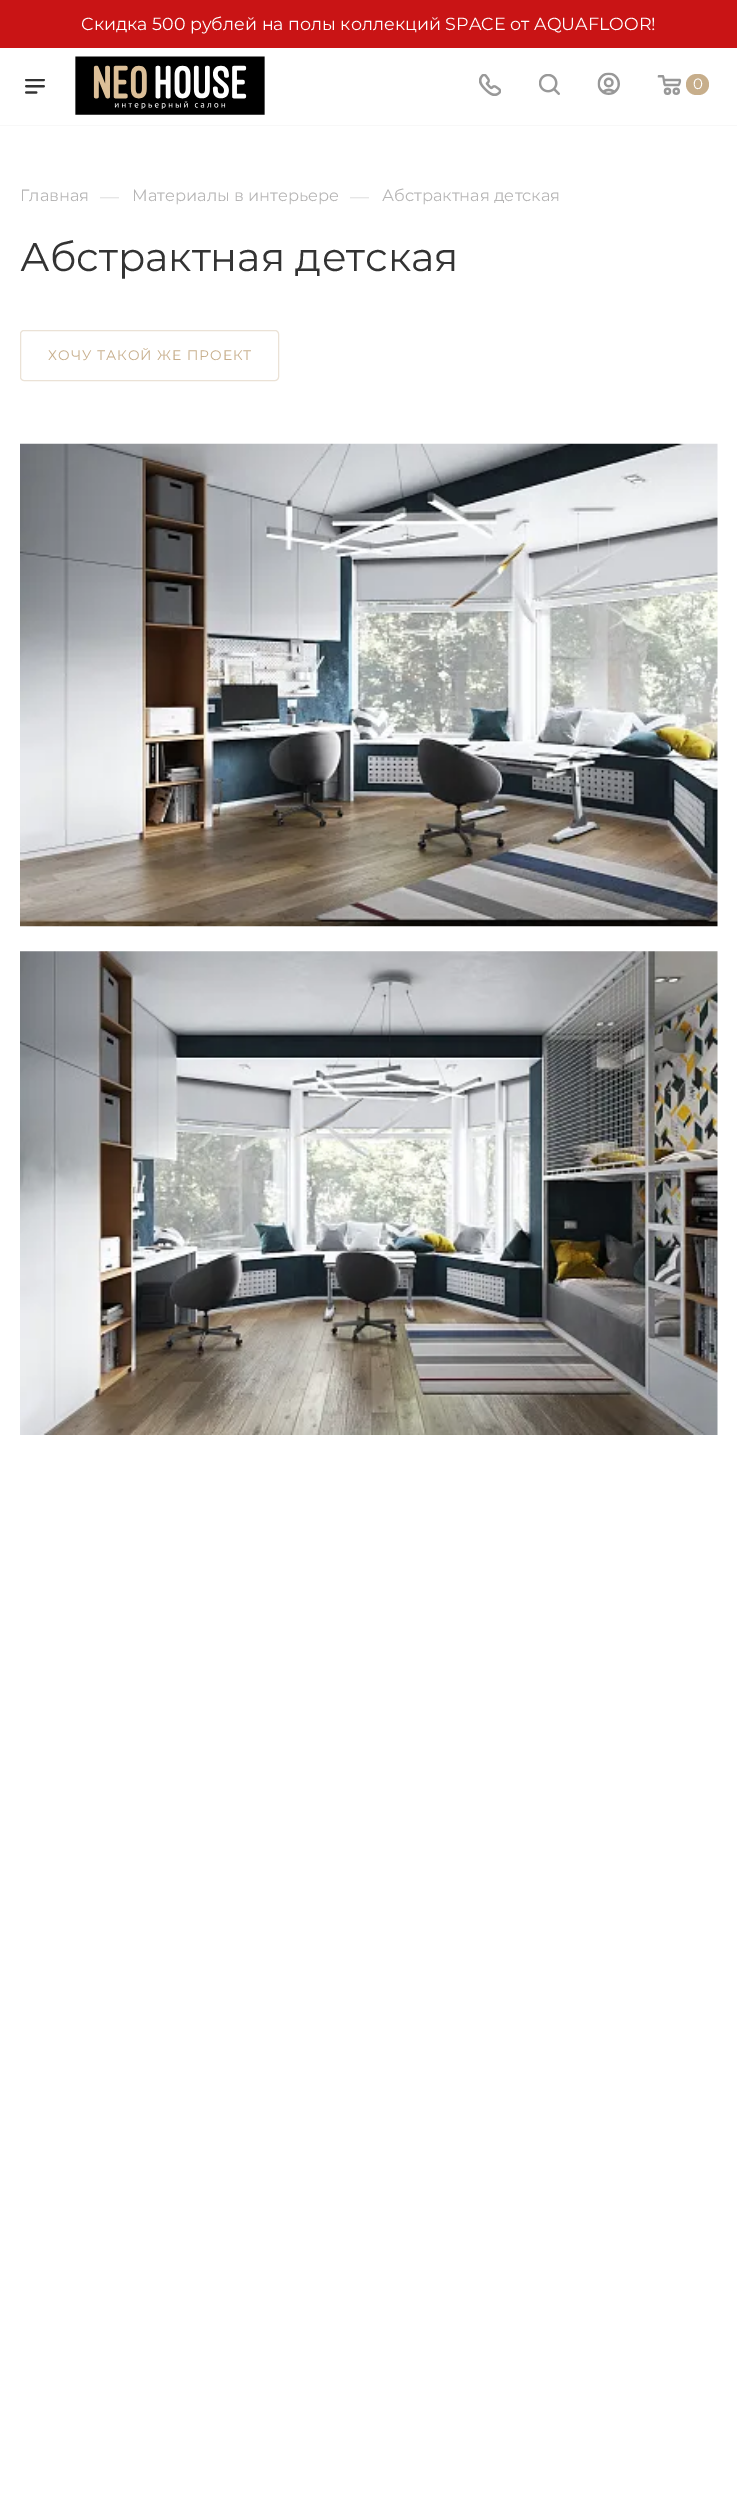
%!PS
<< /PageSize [737 2508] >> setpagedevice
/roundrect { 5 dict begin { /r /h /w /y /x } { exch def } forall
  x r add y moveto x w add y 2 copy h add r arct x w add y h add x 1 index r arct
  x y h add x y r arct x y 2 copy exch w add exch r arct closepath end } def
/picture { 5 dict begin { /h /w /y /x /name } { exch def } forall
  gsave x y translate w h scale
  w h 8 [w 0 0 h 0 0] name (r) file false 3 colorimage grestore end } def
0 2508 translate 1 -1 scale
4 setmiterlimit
1 setgray
0 0 737 2508 rectfill
0.788 0.078 0.082 setrgbcolor
0 0 737 48 rectfill
/Montserrat-Regular [17.5 0 0 -17.5 0 0] selectfont
1 setgray
81 30 moveto (Скидка 500 рублей на полы коллекций SPACE от AQUAFLOOR!) show
0.973 setgray
0 125 737 1 rectfill
(img1.rgb) 25 79 20 15 picture
(img2.rgb) 75 56 190 59 picture
(img3.rgb) 479 74 22 22 picture
(img4.rgb) 539 74 21 21 picture
(img5.rgb) 597 72 23 23 picture
(img6.rgb) 657 75 25 20 picture
0.78 0.682 0.545 setrgbcolor
686 74 23 21 10.5 roundrect fill
/Montserrat-Regular [15 0 0 -15 0 0] selectfont
1 setgray
693 89 moveto (0) show
/Montserrat-Regular [16.25 0 0 -16.25 0 0] selectfont
0.714 0.71 0.71 setrgbcolor
20 201 moveto (Главная) show
/Montserrat-Regular [19 0 0 -19 0 0] selectfont
0.867 setgray
100 203 moveto (—) show
/Montserrat-Regular [16.25 0 0 -16.25 0 0] selectfont
0.714 0.71 0.71 setrgbcolor
132 201 moveto (Материалы в интерьере) show
/Montserrat-Regular [19 0 0 -19 0 0] selectfont
0.867 setgray
350 203 moveto (—) show
/Montserrat-Regular [16.25 0 0 -16.25 0 0] selectfont
0.714 0.71 0.71 setrgbcolor
382 201 moveto (Абстрактная детская) show
/Montserrat-Regular [40 0 0 -40 0 0] selectfont
0.2 setgray
20 271 moveto (Абстрактная детская) show
0.922 0.886 0.839 setrgbcolor
20.5 330.5 258 50 3.5 roundrect stroke
/Montserrat-Regular [13.75 0 0 -13.75 0 0] selectfont
0.78 0.682 0.545 setrgbcolor
48 360 moveto 1 0 (ХОЧУ ТАКОЙ ЖЕ ПРОЕКТ) ashow
(img7.rgb) 20 443 698 484 picture
(img8.rgb) 20 951 698 484 picture
showpage
